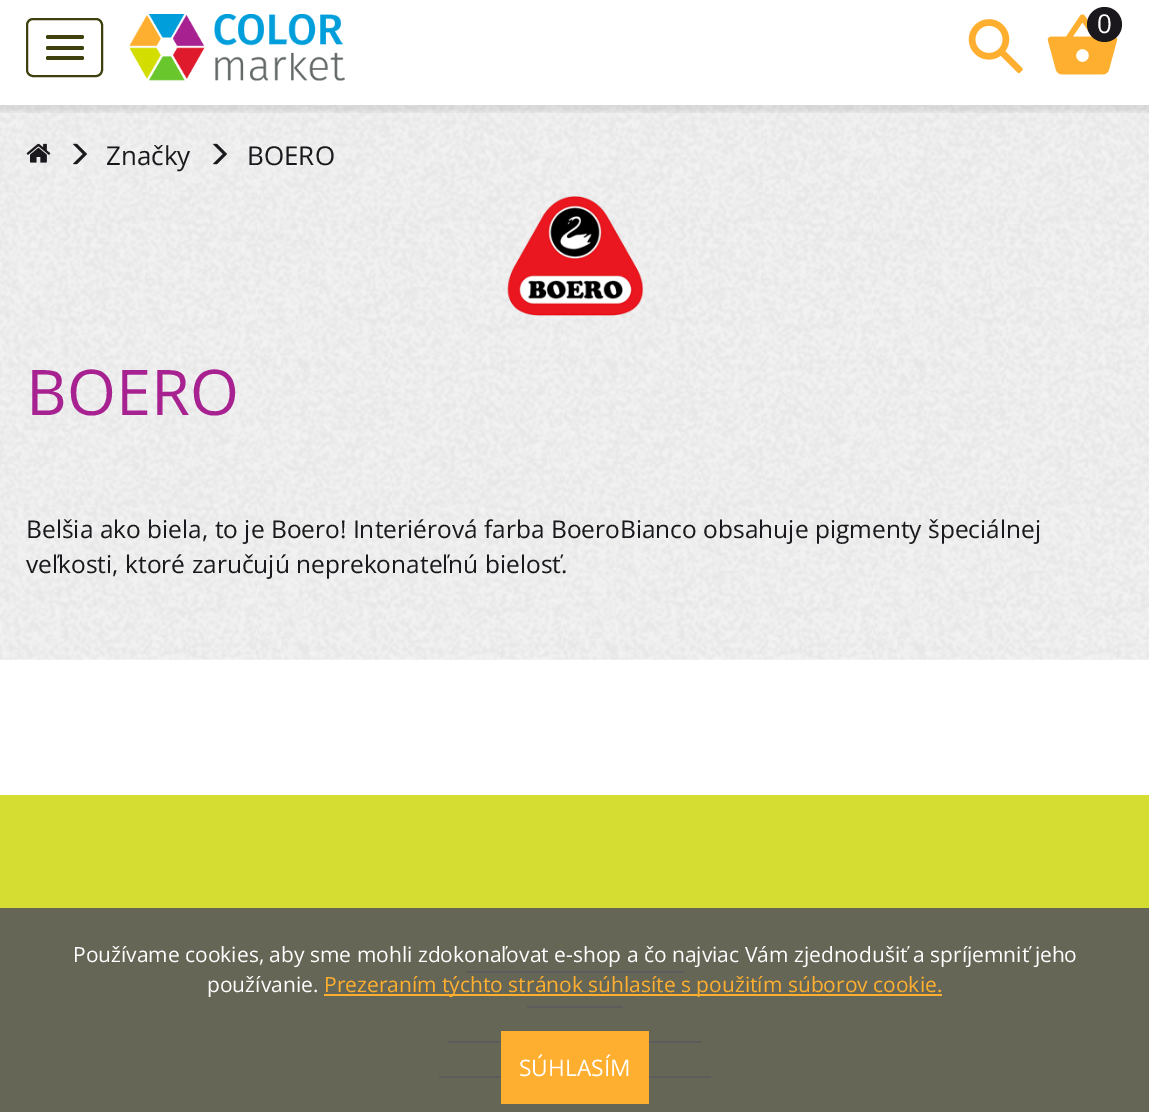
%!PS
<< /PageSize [1149 1112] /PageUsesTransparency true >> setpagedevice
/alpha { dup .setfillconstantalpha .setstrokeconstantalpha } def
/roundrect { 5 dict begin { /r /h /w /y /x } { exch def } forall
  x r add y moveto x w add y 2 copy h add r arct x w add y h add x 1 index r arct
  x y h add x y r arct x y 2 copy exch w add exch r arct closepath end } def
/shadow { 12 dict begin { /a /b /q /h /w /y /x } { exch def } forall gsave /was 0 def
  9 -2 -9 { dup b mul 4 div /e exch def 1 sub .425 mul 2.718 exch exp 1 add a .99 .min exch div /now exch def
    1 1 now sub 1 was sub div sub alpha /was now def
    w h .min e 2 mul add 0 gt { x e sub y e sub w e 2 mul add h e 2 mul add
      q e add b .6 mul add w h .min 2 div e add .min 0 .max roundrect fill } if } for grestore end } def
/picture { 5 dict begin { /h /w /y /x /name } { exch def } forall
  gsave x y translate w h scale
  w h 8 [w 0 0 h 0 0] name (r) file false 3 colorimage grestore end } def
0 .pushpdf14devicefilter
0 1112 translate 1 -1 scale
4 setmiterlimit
1 setgray
0 0 1149 1112 rectfill
(img4.rgb) 0 105 1149 555 picture
gsave
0 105 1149 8 rectclip
0 setgray
-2 4 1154 108 0 2.5 0.07 shadow
grestore
0.243 0.251 0.055 setrgbcolor
2 setlinewidth
27 19 75 57 6 roundrect stroke
46 35 38 4 2 roundrect fill
46 46 38 4 2 roundrect fill
46 56 38 4 2 roundrect fill
(img1.rgb) 130 14 215 67 picture
(img2.rgb) 968 19 55 55 picture
(img3.rgb) 1047 14 71 61 picture
0.102 0.094 0.11 setrgbcolor
newpath 1104.5 24.5 17.5 0 360 arc closepath fill
/OpenSans-Regular [26 0 0 -26 0 0] selectfont
1 setgray
1097 33 moveto (0) show
(img5.rgb) 26 143 25 20 picture
(img6.rgb) 73 143 14 22 picture
0.102 0.094 0.11 setrgbcolor
106 165 moveto (Značky) show
(img7.rgb) 213 143 14 22 picture
247 165 moveto (BOERO) show
(img8.rgb) 507 196 137 120 picture
/OpenSans-Regular [63 0 0 -63 0 0] selectfont
0.655 0.133 0.565 setrgbcolor
26 415 moveto (BOERO) show
/OpenSans-Regular [24.5 0 0 -24.5 0 0] selectfont
0.102 0.094 0.11 setrgbcolor
26 538 moveto (Belšia ako biela, to je Boero! Interiérová farba BoeroBianco obsahuje pigmenty špeciálnej) show
26 573 moveto (veľkosti, ktoré zaručujú neprekonateľnú bielosť.) show
0.835 0.863 0.196 setrgbcolor
0 795 1149 317 rectfill
0.478 setgray
466 971 218 2 rectfill
527 1006 96 2 rectfill
448 1041 254 2 rectfill
439 1076 272 2 rectfill
0.9 alpha
0.349 setgray
0 908 1149 204 rectfill
/OpenSans-Regular [21 0 0 -21 0 0] selectfont
1 alpha
1 setgray
73 962 moveto (Používame cookies, aby sme mohli zdokonaľovat e-shop a čo najviac Vám zjednodušiť a spríjemniť jeho) show
207 992 moveto (používanie.) show
1 0.686 0.188 setrgbcolor
324 994 618 2 rectfill
324 992 moveto (Prezeraním týchto stránok súhlasíte s použitím súborov cookie.) show
501 1031 148 73 rectfill
/OpenSans-Regular [22.75 0 0 -22.75 0 0] selectfont
1 setgray
519 1076 moveto (SÚHLASÍM) show
.poppdf14devicefilter showpage
